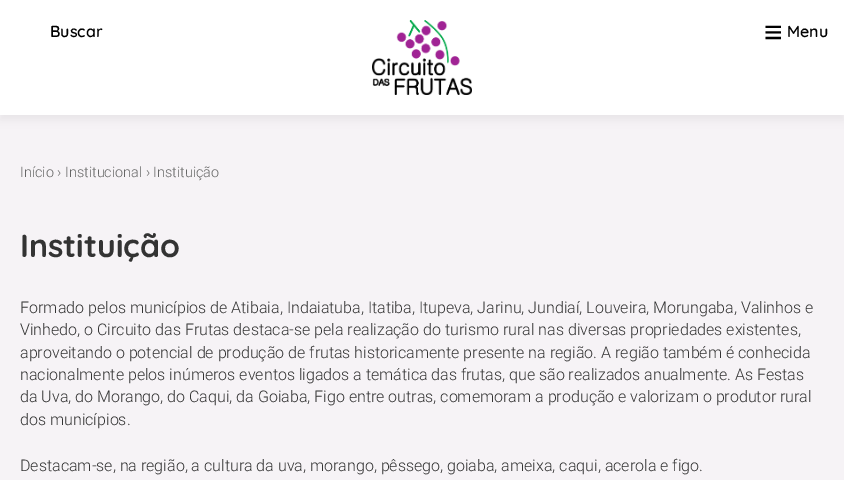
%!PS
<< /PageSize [844 480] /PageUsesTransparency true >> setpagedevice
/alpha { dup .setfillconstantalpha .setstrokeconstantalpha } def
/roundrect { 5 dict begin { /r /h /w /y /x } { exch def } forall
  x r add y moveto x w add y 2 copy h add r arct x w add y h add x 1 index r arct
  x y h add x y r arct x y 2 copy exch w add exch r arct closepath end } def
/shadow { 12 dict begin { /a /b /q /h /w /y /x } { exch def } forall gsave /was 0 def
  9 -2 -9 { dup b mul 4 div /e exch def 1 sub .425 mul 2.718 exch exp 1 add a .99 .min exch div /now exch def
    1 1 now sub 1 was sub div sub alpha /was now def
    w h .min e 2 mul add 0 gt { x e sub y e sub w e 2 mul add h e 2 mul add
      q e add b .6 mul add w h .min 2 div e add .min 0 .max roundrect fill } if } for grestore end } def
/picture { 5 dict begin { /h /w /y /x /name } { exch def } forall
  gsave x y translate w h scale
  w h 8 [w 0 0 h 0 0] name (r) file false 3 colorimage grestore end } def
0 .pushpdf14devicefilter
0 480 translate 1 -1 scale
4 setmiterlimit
0.965 0.953 0.965 setrgbcolor
0 0 844 480 rectfill
0 setgray
0 5 844 115 0 5 0.05 shadow
1 setgray
0 0 844 115 rectfill
/Quicksand-SemiBold [16 0 0 -16 0 0] selectfont
0 setgray
50 37 moveto (Buscar) show
(img1.rgb) 372 20 100 75 picture
/LiberationSans-Regular [32 0 0 -32 0 0] selectfont
764 43 moveto (≡) show
/Quicksand-SemiBold [16 0 0 -16 0 0] selectfont
787 37 moveto (Menu) show
/Roboto-Light [14.4 0 0 -14.4 0 0] selectfont
0.4 setgray
20 177 moveto (Início › Institucional › Instituição) show
/Quicksand-Bold [32 0 0 -32 0 0] selectfont
0.2 setgray
20 257 moveto (Instituição) show
/Roboto-Light [16 0 0 -16 0 0] selectfont
20 313 moveto (Formado pelos municípios de Atibaia, Indaiatuba, Itatiba, Itupeva, Jarinu, Jundiaí, Louveira, Morungaba, Valinhos e) show
20 335 moveto (Vinhedo, o Circuito das Frutas destaca-se pela realização do turismo rural nas diversas propriedades existentes,) show
20 358 moveto (aproveitando o potencial de produção de frutas historicamente presente na região. A região também é conhecida) show
20 380 moveto (nacionalmente pelos inúmeros eventos ligados a temática das frutas, que são realizados anualmente. As Festas) show
20 402 moveto (da Uva, do Morango, do Caqui, da Goiaba, Figo entre outras, comemoram a produção e valorizam o produtor rural) show
20 425 moveto (dos municípios.) show
20 471 moveto (Destacam-se, na região, a cultura da uva, morango, pêssego, goiaba, ameixa, caqui, acerola e figo.) show
.poppdf14devicefilter showpage
